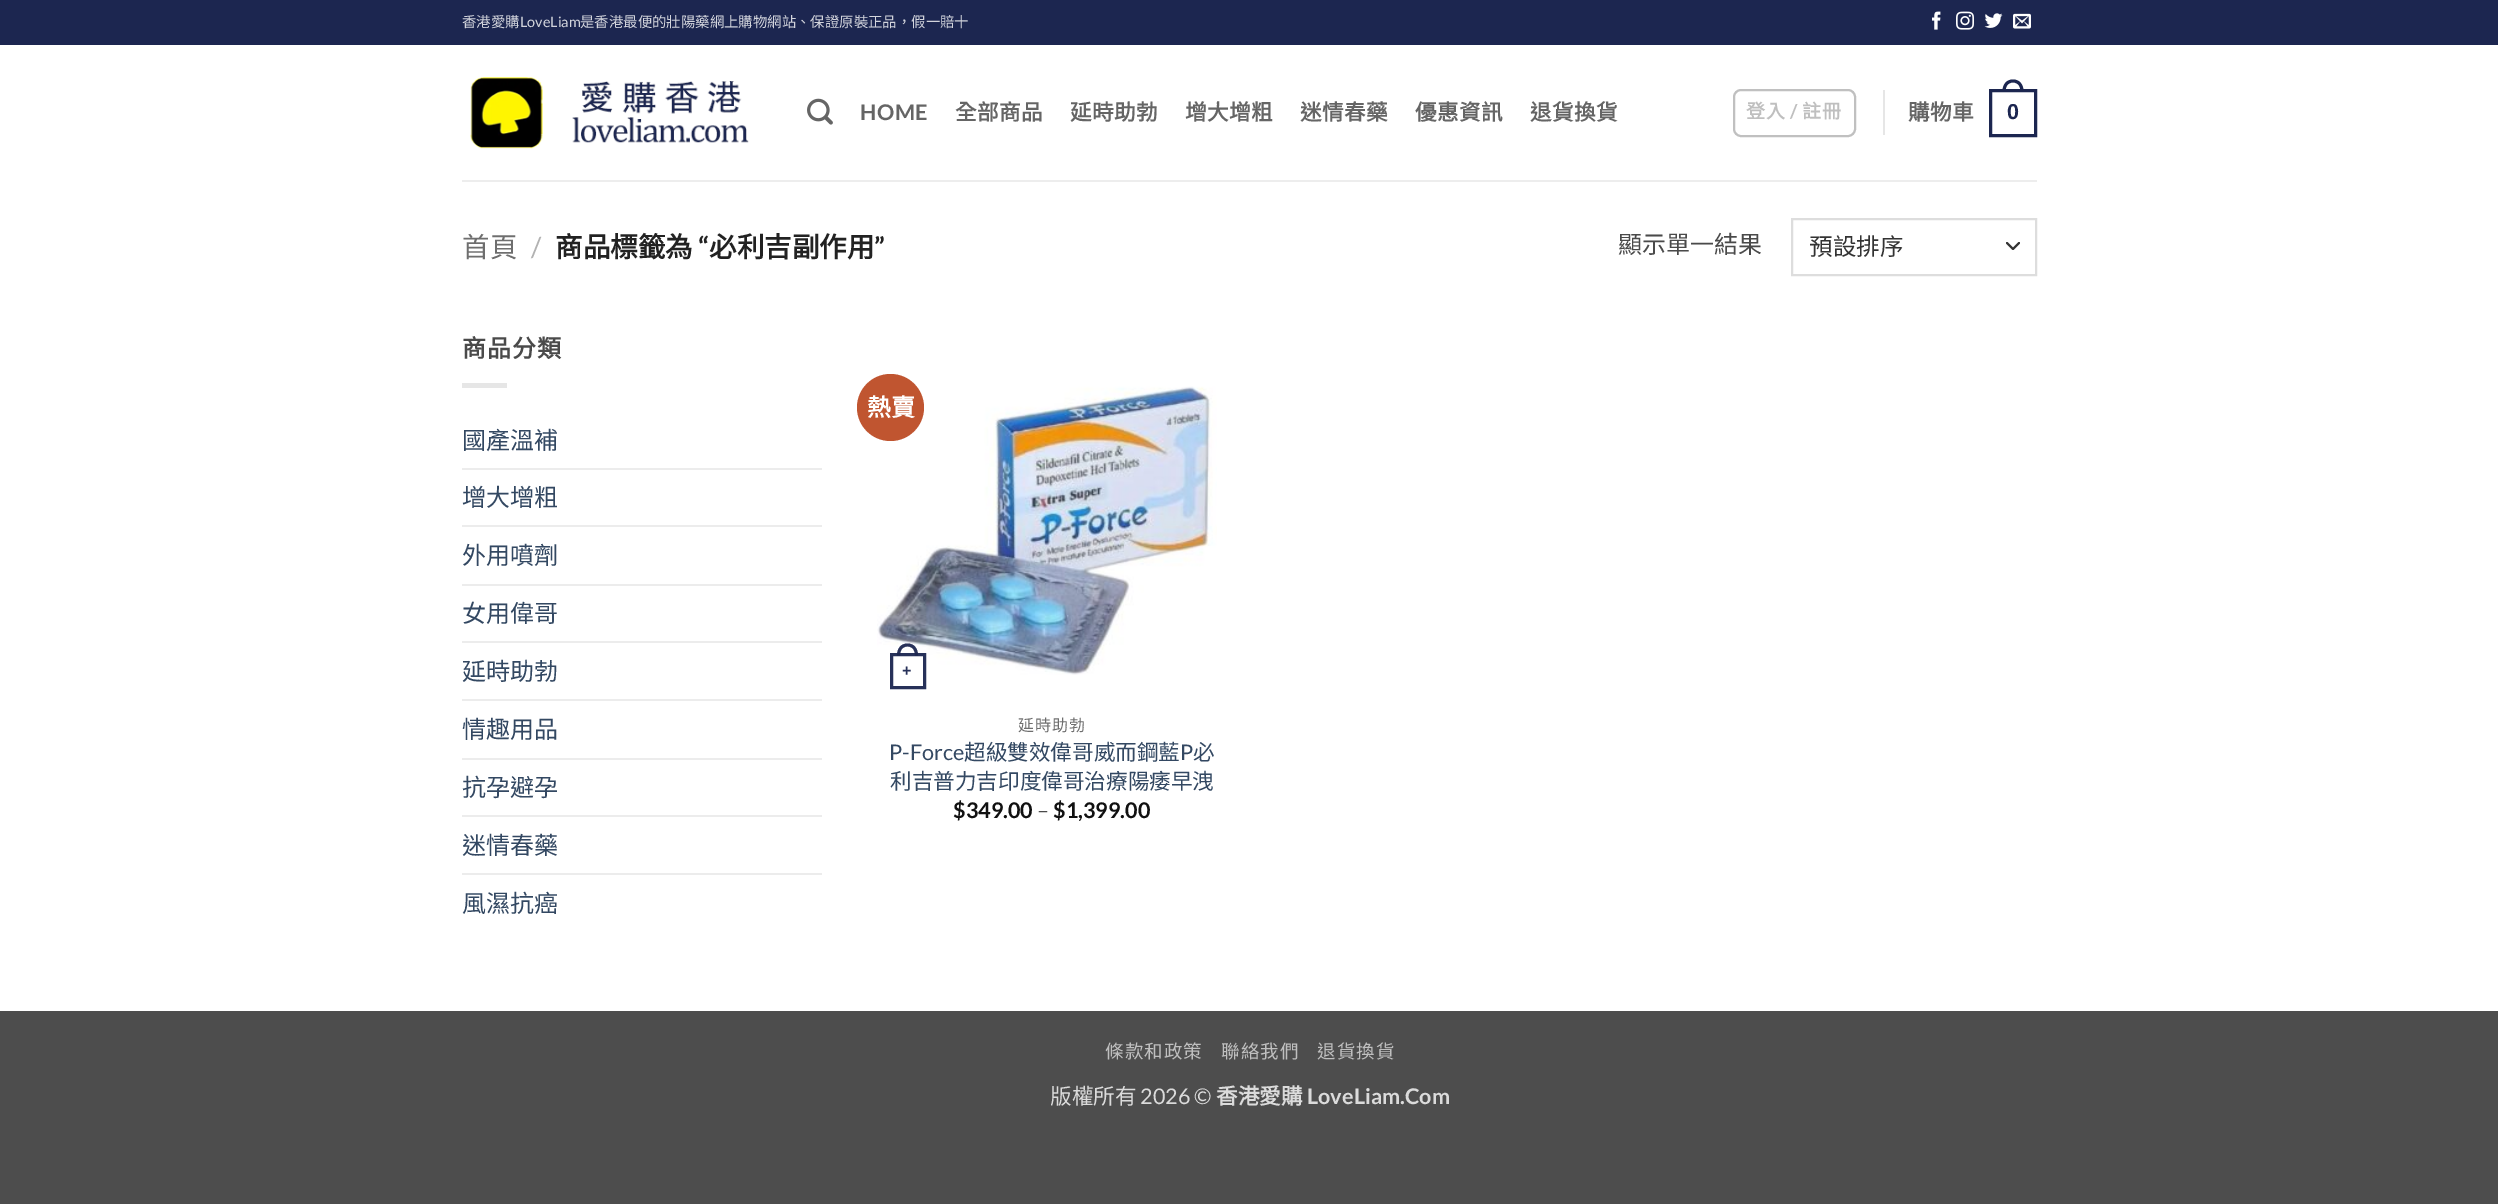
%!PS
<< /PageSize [2498 1204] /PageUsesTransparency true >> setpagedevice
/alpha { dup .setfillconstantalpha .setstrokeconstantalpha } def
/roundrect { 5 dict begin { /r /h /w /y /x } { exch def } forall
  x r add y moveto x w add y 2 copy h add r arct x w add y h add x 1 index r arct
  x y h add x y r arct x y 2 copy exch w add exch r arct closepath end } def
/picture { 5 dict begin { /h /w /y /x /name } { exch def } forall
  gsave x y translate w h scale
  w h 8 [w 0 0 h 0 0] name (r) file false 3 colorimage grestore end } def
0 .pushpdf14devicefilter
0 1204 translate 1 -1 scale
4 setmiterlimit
0.302 setgray
0 0 2498 1204 rectfill
1 setgray
0 45 2498 966 rectfill
0.11 0.149 0.314 setrgbcolor
0 0 2498 45 rectfill
/NotoSansCJKHK-Regular [14.4 0 0 -14.4 0 0] selectfont
0.824 0.831 0.863 setrgbcolor
462 27 moveto (香港愛購) show
/Lato-Regular [14.4 0 0 -14.4 0 0] selectfont
520 27 moveto (LoveLiam) show
/NotoSansCJKHK-Regular [14.4 0 0 -14.4 0 0] selectfont
580 27 moveto (是香港最便的壯陽藥網上購物網站、保證原裝正品，假一賠十) show
(img1.rgb) 1932 11 9 19 picture
(img2.rgb) 1956 11 18 19 picture
(img3.rgb) 1984 13 19 15 picture
(img4.rgb) 2013 13 18 16 picture
(img5.rgb) 470 77 279 72 picture
(img6.rgb) 807 98 26 27 picture
/Lato-Bold [21.6 0 0 -21.6 0 0] selectfont
0.396 setgray
860 120 moveto 0.5 0 (HOME) ashow
/NotoSansCJKHK-Bold [21.6 0 0 -21.6 0 0] selectfont
955 120 moveto 0.5 0 (全部商品) ashow
1070 120 moveto 0.5 0 (延時助勃) ashow
1185 120 moveto 0.5 0 (增大增粗) ashow
1300 120 moveto 0.5 0 (迷情春藥) ashow
1415 120 moveto 0.5 0 (優惠資訊) ashow
1530 120 moveto 0.5 0 (退貨換貨) ashow
0.753 setgray
2 setlinewidth
1734 90 121 46 7 roundrect stroke
/NotoSansCJKHK-Bold [19 0 0 -19 0 0] selectfont
0.749 setgray
1746 118 moveto 1 0 (登入) ashow
/Lato-Bold [19 0 0 -19 0 0] selectfont
1790 118 moveto 1 0 (/) ashow
/NotoSansCJKHK-Bold [19 0 0 -19 0 0] selectfont
1802 118 moveto 1 0 (註冊) ashow
0.902 setgray
1883 90 2 45 rectfill
/NotoSansCJKHK-Bold [21.6 0 0 -21.6 0 0] selectfont
0.396 setgray
1908 120 moveto 0.5 0 (購物車) ashow
0.11 0.149 0.314 setrgbcolor
3 setlinewidth
1990.5 90.5 45 45 rectstroke
newpath 2013 79.5 moveto 2020 79.5 2023.5 85 2023.5 91.5 curveto 2002.5 91.5 lineto 2002.5 85 2006 79.5 2013 79.5 curveto closepath 2013 82.5 moveto 2018.5 82.5 2020.5 87 2020.5 91.5 curveto 2005.5 91.5 lineto 2005.5 87 2007.5 82.5 2013 82.5 curveto closepath eofill
/LiberationSans-Bold [21.6 0 0 -21.6 0 0] selectfont
2007 119 moveto 0.5 0 (0) ashow
0.929 setgray
462 180 1575 2 rectfill
/NotoSansCJKHK-Regular [27.5 0 0 -27.5 0 0] selectfont
0.431 setgray
462 257 moveto (首頁) show
/Lato-Regular [27.5 0 0 -27.5 0 0] selectfont
0.698 setgray
531 257 moveto (/) show
/NotoSansCJKHK-Bold [27.5 0 0 -27.5 0 0] selectfont
0.133 setgray
555 257 moveto (商品標籤為) show
/Lato-Bold [27.5 0 0 -27.5 0 0] selectfont
698 257 moveto (“) show
/NotoSansCJKHK-Bold [27.5 0 0 -27.5 0 0] selectfont
709 257 moveto (必利吉副作用) show
/Lato-Bold [27.5 0 0 -27.5 0 0] selectfont
874 257 moveto (”) show
/NotoSansCJKHK-Regular [24 0 0 -24 0 0] selectfont
0.29 setgray
1618 253 moveto (顯示單一結果) show
0.2 setgray
2 setlinewidth
1 setlinecap
1 setlinejoin
newpath 2007 243 moveto 2013 249 lineto 2019 243 lineto stroke
0.867 setgray
0 setlinecap
0 setlinejoin
1792 219 244 56 rectstroke
/NotoSansCJKHK-Regular [23.5 0 0 -23.5 0 0] selectfont
0.2 setgray
1809 255 moveto (預設排序) show
/NotoSansCJKHK-Bold [24 0 0 -24 0 0] selectfont
0.29 setgray
462 357 moveto 1 0 (商品分類) ashow
0.902 setgray
462 383 45 5 rectfill
/NotoSansCJKHK-Regular [24 0 0 -24 0 0] selectfont
0.2 0.282 0.384 setrgbcolor
462 449 moveto (國產溫補) show
0.925 setgray
462 468 360 2 rectfill
0.2 0.282 0.384 setrgbcolor
462 506 moveto (增大增粗) show
0.925 setgray
462 525 360 2 rectfill
0.2 0.282 0.384 setrgbcolor
462 564 moveto (外用噴劑) show
0.925 setgray
462 584 360 2 rectfill
0.2 0.282 0.384 setrgbcolor
462 622 moveto (女用偉哥) show
0.925 setgray
462 641 360 2 rectfill
0.2 0.282 0.384 setrgbcolor
462 680 moveto (延時助勃) show
0.925 setgray
462 699 360 2 rectfill
0.2 0.282 0.384 setrgbcolor
462 738 moveto (情趣用品) show
0.925 setgray
462 758 360 2 rectfill
0.2 0.282 0.384 setrgbcolor
462 796 moveto (抗孕避孕) show
0.925 setgray
462 815 360 2 rectfill
0.2 0.282 0.384 setrgbcolor
462 854 moveto (迷情春藥) show
0.925 setgray
462 873 360 2 rectfill
0.2 0.282 0.384 setrgbcolor
462 912 moveto (風濕抗癌) show
(img7.rgb) 877 386 340 289 picture
0.753 0.333 0.188 setrgbcolor
newpath 890.5 407.5 33.5 0 360 arc closepath fill
/NotoSansCJKHK-Bold [24 0 0 -24 0 0] selectfont
1 setgray
867 416 moveto (熱賣) show
0.153 0.192 0.349 setrgbcolor
3 setlinewidth
891.5 654.5 33 33 rectstroke
0.95 alpha
0.11 0.149 0.314 setrgbcolor
newpath 907.5 643.5 moveto 914.5 643.5 918 649 918 655.5 curveto 897 655.5 lineto 897 649 900.5 643.5 907.5 643.5 curveto closepath 907.5 646.5 moveto 913 646.5 915 651 915 655.5 curveto 900 655.5 lineto 900 651 902 646.5 907.5 646.5 curveto closepath eofill
/LiberationSans-Bold [16 0 0 -16 0 0] selectfont
1 alpha
0.153 0.192 0.349 setrgbcolor
902 676 moveto (+) show
/NotoSansCJKHK-Regular [16 0 0 -16 0 0] selectfont
0.431 setgray
1018 731 moveto 1 0 (延時助勃) ashow
/Lato-Regular [21.6 0 0 -21.6 0 0] selectfont
0.2 0.282 0.384 setrgbcolor
889 760 moveto (P-Force) show
/NotoSansCJKHK-Regular [21.6 0 0 -21.6 0 0] selectfont
964 760 moveto (超級雙效偉哥威而鋼藍) show
/Lato-Regular [21.6 0 0 -21.6 0 0] selectfont
1180 760 moveto (P) show
/NotoSansCJKHK-Regular [21.6 0 0 -21.6 0 0] selectfont
1193 760 moveto (必) show
890 789 moveto (利吉普力吉印度偉哥治療陽痿早洩) show
/Lato-Bold [21.6 0 0 -21.6 0 0] selectfont
0.067 setgray
953 818 moveto ($349.00) show
/Lato-Regular [21.6 0 0 -21.6 0 0] selectfont
0.29 setgray
1037 818 moveto (–) show
/Lato-Bold [21.6 0 0 -21.6 0 0] selectfont
0.067 setgray
1053 818 moveto ($1,399.00) show
/NotoSansCJKHK-Regular [18.5 0 0 -18.5 0 0] selectfont
0.749 setgray
1105 1058 moveto 1 0 (條款和政策) ashow
1221 1058 moveto 1 0 (聯絡我們) ashow
1317 1058 moveto 1 0 (退貨換貨) ashow
/NotoSansCJKHK-Regular [21.6 0 0 -21.6 0 0] selectfont
0.859 setgray
1050 1104 moveto (版權所有) show
/Lato-Regular [21.6 0 0 -21.6 0 0] selectfont
1140 1104 moveto (2026 ©) show
/NotoSansCJKHK-Bold [21.6 0 0 -21.6 0 0] selectfont
1216 1104 moveto (香港愛購) show
/Lato-Bold [21.6 0 0 -21.6 0 0] selectfont
1307 1104 moveto (LoveLiam.Com) show
.poppdf14devicefilter showpage
